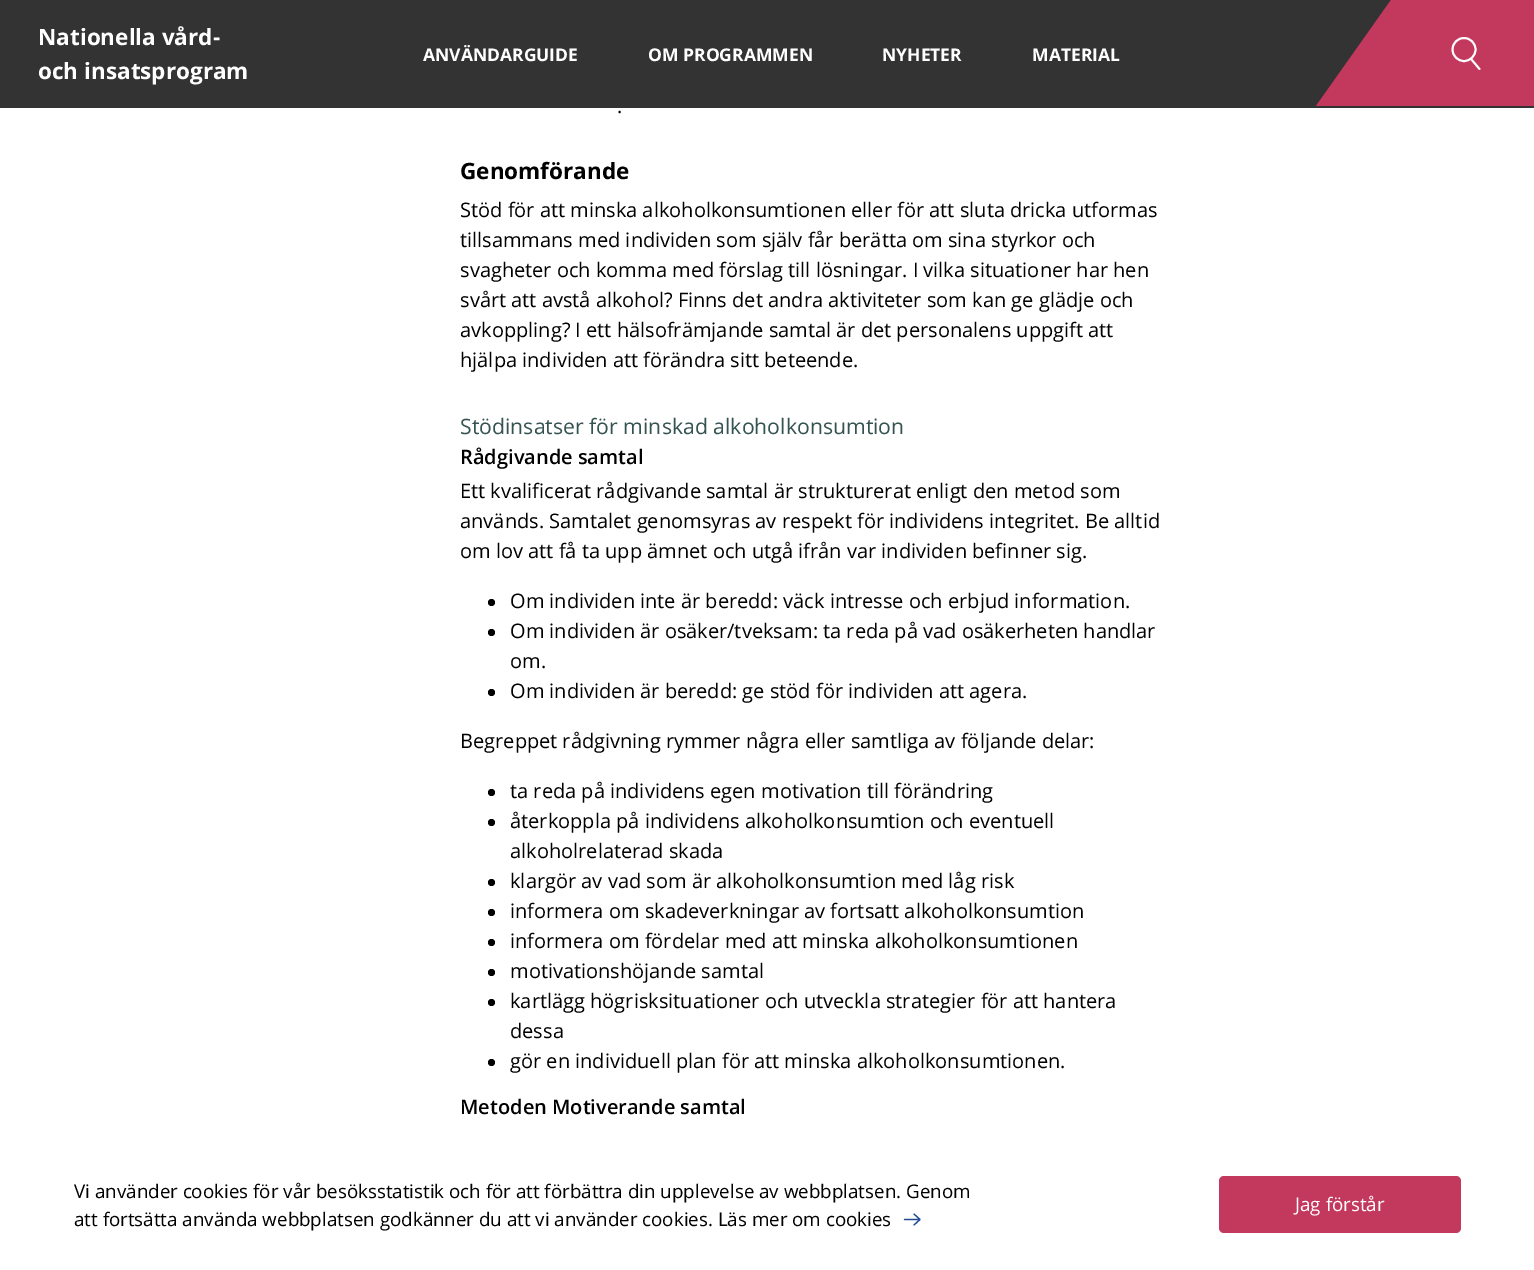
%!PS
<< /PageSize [1534 1270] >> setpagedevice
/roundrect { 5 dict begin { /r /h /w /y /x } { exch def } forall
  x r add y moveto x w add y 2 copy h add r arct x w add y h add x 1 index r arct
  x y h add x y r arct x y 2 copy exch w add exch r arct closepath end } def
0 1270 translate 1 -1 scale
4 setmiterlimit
1 setgray
0 0 1534 1270 rectfill
0.2 setgray
0 0 1534 108 rectfill
/OpenSans-Bold [22.5 0 0 -22.5 0 0] selectfont
1 setgray
38 45 moveto (Nationella vård-) show
38 79 moveto (och insatsprogram) show
/OpenSans-Bold [17.5 0 0 -17.5 0 0] selectfont
423 61 moveto (ANVÄNDARGUIDE) show
648 61 moveto (OM PROGRAMMEN) show
882 61 moveto (NYHETER) show
1032 61 moveto (MATERIAL) show
0.765 0.22 0.365 setrgbcolor
newpath 1391 0 moveto 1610 0 lineto 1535 106 lineto 1316 106 lineto closepath fill
1 setgray
1.9 setlinewidth
newpath 1464 49.5 11.5 0 360 arc closepath stroke
1 setlinecap
newpath 1471.5 59.5 moveto 1479.5 69 lineto stroke
/OpenSans-Regular [20 0 0 -20 0 0] selectfont
0 setgray
617 113 moveto (.) show
/OpenSans-Bold [22.5 0 0 -22.5 0 0] selectfont
460 179 moveto (Genomförande) show
/OpenSans-Regular [20 0 0 -20 0 0] selectfont
460 217 moveto (Stöd för att minska alkoholkonsumtionen eller för att sluta dricka utformas) show
460 247 moveto (tillsammans med individen som själv får berätta om sina styrkor och) show
460 277 moveto (svagheter och komma med förslag till lösningar. I vilka situationer har hen) show
460 307 moveto (svårt att avstå alkohol? Finns det andra aktiviteter som kan ge glädje och) show
460 337 moveto (avkoppling? I ett hälsofrämjande samtal är det personalens uppgift att) show
460 367 moveto (hjälpa individen att förändra sitt beteende.) show
/OpenSans-Regular [21.25 0 0 -21.25 0 0] selectfont
0.208 0.329 0.318 setrgbcolor
460 434 moveto (Stödinsatser för minskad alkoholkonsumtion) show
/OpenSans-SemiBold [20 0 0 -20 0 0] selectfont
0 setgray
460 464 moveto (Rådgivande samtal) show
/OpenSans-Regular [20 0 0 -20 0 0] selectfont
460 498 moveto (Ett kvalificerat rådgivande samtal är strukturerat enligt den metod som) show
460 528 moveto (används. Samtalet genomsyras av respekt för individens integritet. Be alltid) show
460 558 moveto (om lov att få ta upp ämnet och utgå ifrån var individen befinner sig.) show
newpath 491.5 602.5 3.5 0 360 arc closepath fill
510 608 moveto (Om individen inte är beredd: väck intresse och erbjud information.) show
newpath 491.5 632.5 3.5 0 360 arc closepath fill
510 638 moveto (Om individen är osäker/tveksam: ta reda på vad osäkerheten handlar) show
510 668 moveto (om.) show
newpath 491.5 692.5 3.5 0 360 arc closepath fill
510 698 moveto (Om individen är beredd: ge stöd för individen att agera.) show
460 748 moveto (Begreppet rådgivning rymmer några eller samtliga av följande delar:) show
newpath 491.5 792.5 3.5 0 360 arc closepath fill
510 798 moveto (ta reda på individens egen motivation till förändring) show
newpath 491.5 822.5 3.5 0 360 arc closepath fill
510 828 moveto (återkoppla på individens alkoholkonsumtion och eventuell) show
510 858 moveto (alkoholrelaterad skada) show
newpath 491.5 882.5 3.5 0 360 arc closepath fill
510 888 moveto (klargör av vad som är alkoholkonsumtion med låg risk) show
newpath 491.5 912.5 3.5 0 360 arc closepath fill
510 918 moveto (informera om skadeverkningar av fortsatt alkoholkonsumtion) show
newpath 491.5 942.5 3.5 0 360 arc closepath fill
510 948 moveto (informera om fördelar med att minska alkoholkonsumtionen) show
newpath 491.5 972.5 3.5 0 360 arc closepath fill
510 978 moveto (motivationshöjande samtal) show
newpath 491.5 1002.5 3.5 0 360 arc closepath fill
510 1008 moveto (kartlägg högrisksituationer och utveckla strategier för att hantera) show
510 1038 moveto (dessa) show
newpath 491.5 1062.5 3.5 0 360 arc closepath fill
510 1068 moveto (gör en individuell plan för att minska alkoholkonsumtionen.) show
/OpenSans-SemiBold [20 0 0 -20 0 0] selectfont
460 1114 moveto (Metoden Motiverande samtal) show
/OpenSans-Regular [18.75 0 0 -18.75 0 0] selectfont
74 1198 moveto (Vi använder cookies för vår besöksstatistik och för att förbättra din upplevelse av webbplatsen. Genom) show
74 1226 moveto (att fortsätta använda webbplatsen godkänner du att vi använder cookies. Läs mer om cookies) show
0.133 0.298 0.58 setrgbcolor
1.2 setlinewidth
1 setlinejoin
newpath 904.5 1219.5 moveto 919.5 1219.5 lineto 914 1214 moveto 920 1219.5 lineto 914 1225 lineto stroke
0.765 0.22 0.365 setrgbcolor
1219 1176 242 57 5 roundrect fill
1 setgray
1295 1211 moveto (Jag förstår) show
showpage
